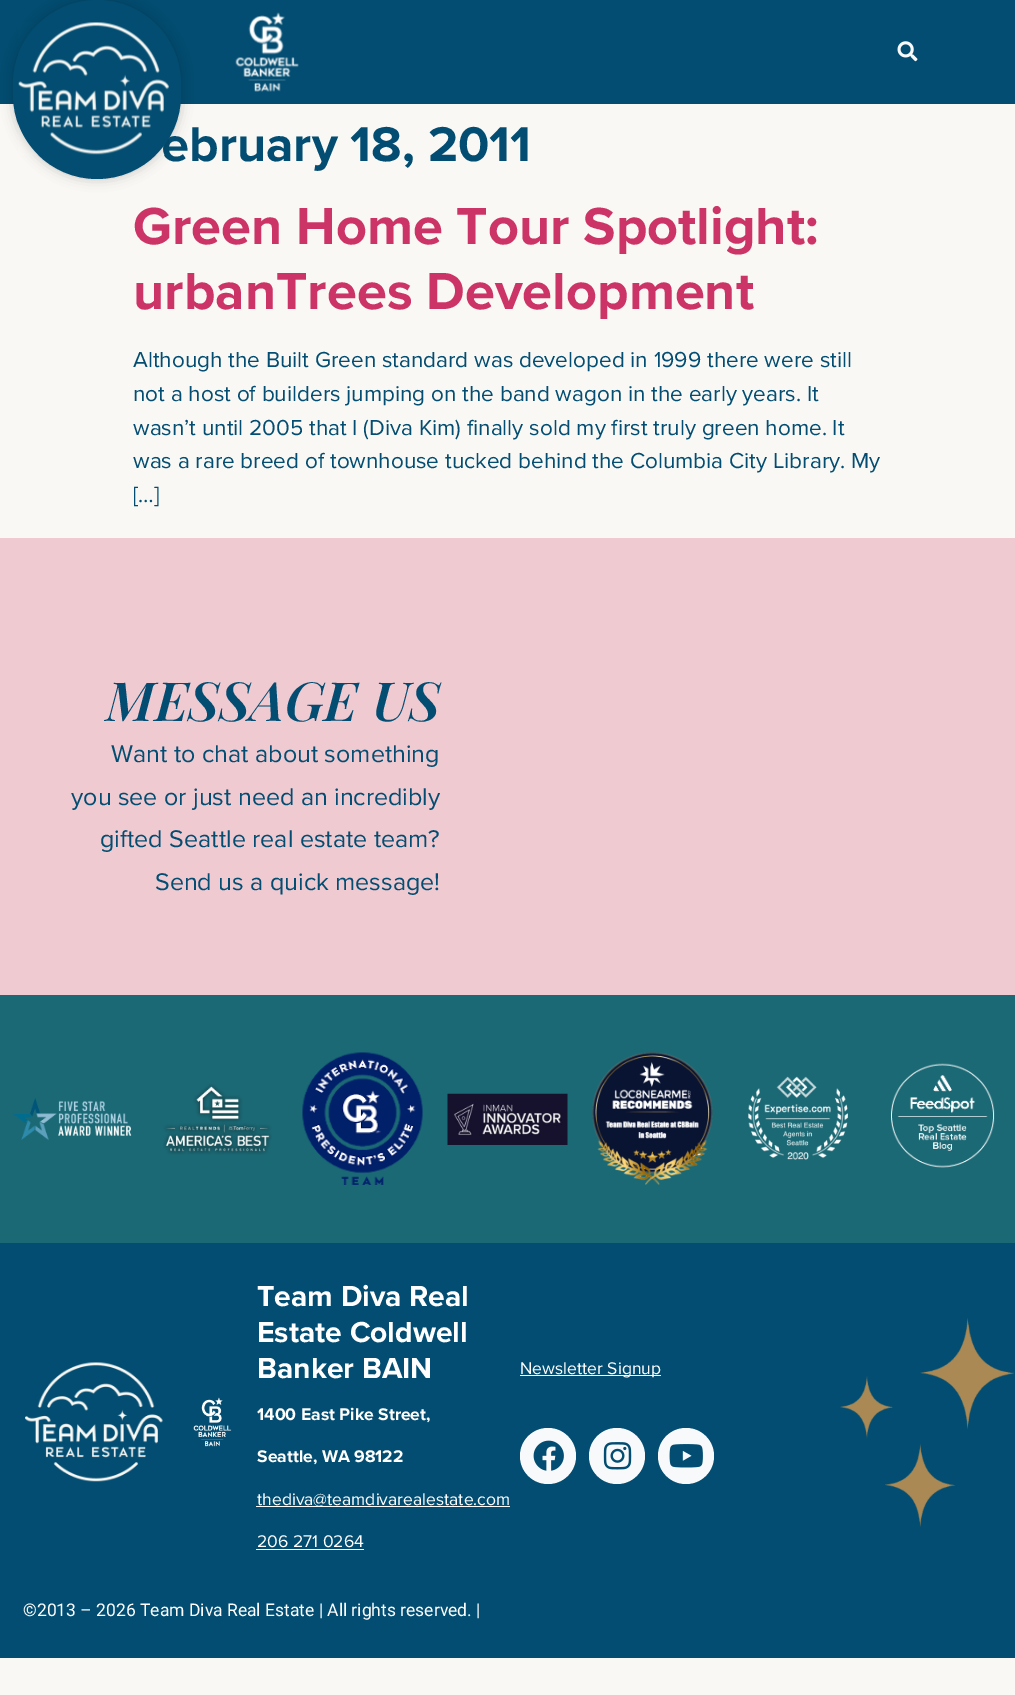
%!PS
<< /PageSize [1015 1695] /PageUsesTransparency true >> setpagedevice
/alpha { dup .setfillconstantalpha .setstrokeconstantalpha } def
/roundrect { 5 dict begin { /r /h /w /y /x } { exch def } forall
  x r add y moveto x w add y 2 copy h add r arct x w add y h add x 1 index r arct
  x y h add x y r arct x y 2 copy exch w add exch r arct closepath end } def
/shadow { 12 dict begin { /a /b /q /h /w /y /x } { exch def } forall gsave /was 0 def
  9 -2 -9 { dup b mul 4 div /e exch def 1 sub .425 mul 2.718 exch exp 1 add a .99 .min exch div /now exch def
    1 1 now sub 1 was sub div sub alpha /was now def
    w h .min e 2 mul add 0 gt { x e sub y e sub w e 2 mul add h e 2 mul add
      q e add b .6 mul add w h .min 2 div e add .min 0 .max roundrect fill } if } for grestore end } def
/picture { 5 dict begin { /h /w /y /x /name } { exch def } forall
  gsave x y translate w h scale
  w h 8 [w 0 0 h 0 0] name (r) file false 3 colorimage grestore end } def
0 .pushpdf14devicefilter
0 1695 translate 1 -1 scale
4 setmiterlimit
0.976 0.973 0.957 setrgbcolor
0 0 1015 1695 rectfill
0.008 0.302 0.443 setrgbcolor
0 0 1015 104 rectfill
0 setgray
13 0 168 179 84 6 0.2 shadow
0.008 0.302 0.443 setrgbcolor
13 0 168 179 84 roundrect fill
/ProximaNova-Bold [50.5 0 0 -50.5 0 0] selectfont
161 161 moveto (ebruary 18, 2011) show
(img1.rgb) 18 22 151 133 picture
(img2.rgb) 235 12 64 80 picture
(img3.rgb) 897 41 21 21 picture
/ProximaNova-Bold [54 0 0 -54 0 0] selectfont
0.8 0.2 0.4 setrgbcolor
133 244 moveto (Green Home Tour Spotlight:) show
133 309 moveto (urbanTrees Development) show
/ProximaNova-Regular [22.5 0 0 -22.5 0 0] selectfont
0.008 0.302 0.443 setrgbcolor
133 367 moveto (Although the Built Green standard was developed in 1999 there were still) show
133 401 moveto (not a host of builders jumping on the band wagon in the early years. It) show
133 435 moveto (wasn’t until 2005 that I \(Diva Kim\) finally sold my first truly green home. It) show
133 468 moveto (was a rare breed of townhouse tucked behind the Columbia City Library. My) show
133 502 moveto ([…]) show
0.941 0.792 0.82 setrgbcolor
0 538 1015 457 rectfill
/PlayfairDisplay-SemiBoldItalic [54 0 0 -54 0 0] selectfont
0.008 0.302 0.443 setrgbcolor
106 721 moveto (MESSAGE US) show
/ProximaNova-Regular [25 0 0 -25 0 0] selectfont
111 762 moveto (Want to chat about something) show
71 805 moveto (you see or just need an incredibly) show
100 847 moveto (gifted Seattle real estate team?) show
155 890 moveto (Send us a quick message!) show
0.106 0.412 0.459 setrgbcolor
0 995 1015 248 rectfill
(img4.rgb) 13 1098 119 42 picture
(img5.rgb) 163 1084 109 71 picture
(img6.rgb) 302 1052 121 133 picture
(img7.rgb) 447 1093 121 52 picture
(img8.rgb) 592 1052 121 133 picture
(img9.rgb) 748 1076 100 84 picture
(img10.rgb) 891 1063 104 105 picture
0.008 0.302 0.443 setrgbcolor
0 1243 1015 415 rectfill
(img11.rgb) 25 1362 138 120 picture
(img12.rgb) 193 1397 39 50 picture
/ProximaNova-Bold [30 0 0 -30 0 0] selectfont
1 setgray
257 1306 moveto (Team Diva Real) show
257 1342 moveto (Estate Coldwell) show
257 1378 moveto (Banker BAIN) show
/ProximaNova-Bold [17.5 0 0 -17.5 0 0] selectfont
257 1420 moveto (1400 East Pike Street,) show
257 1462 moveto (Seattle, WA 98122) show
256 1506 254 1 rectfill
/ProximaNova-Regular [17.5 0 0 -17.5 0 0] selectfont
257 1505 moveto (thediva@teamdivarealestate.com) show
257 1547 moveto (206 271 0264) show
256 1549 108 1 rectfill
520 1375 141 1 rectfill
520 1374 moveto (Newsletter Signup) show
0.973 0.976 0.98 setrgbcolor
newpath 548 1456 28 0 360 arc closepath fill
(img13.rgb) 533 1440 31 31 picture
newpath 617 1456 28 0 360 arc closepath fill
(img14.rgb) 603 1442 29 28 picture
newpath 686 1456 28 0 360 arc closepath fill
(img15.rgb) 669 1444 34 24 picture
(img16.rgb) 840 1318 174 209 picture
/Roboto-Regular [17.5 0 0 -17.5 0 0] selectfont
1 setgray
23 1616 moveto (©2013 – 2026 Team Diva Real Estate | All rights reserved. |) show
.poppdf14devicefilter showpage
